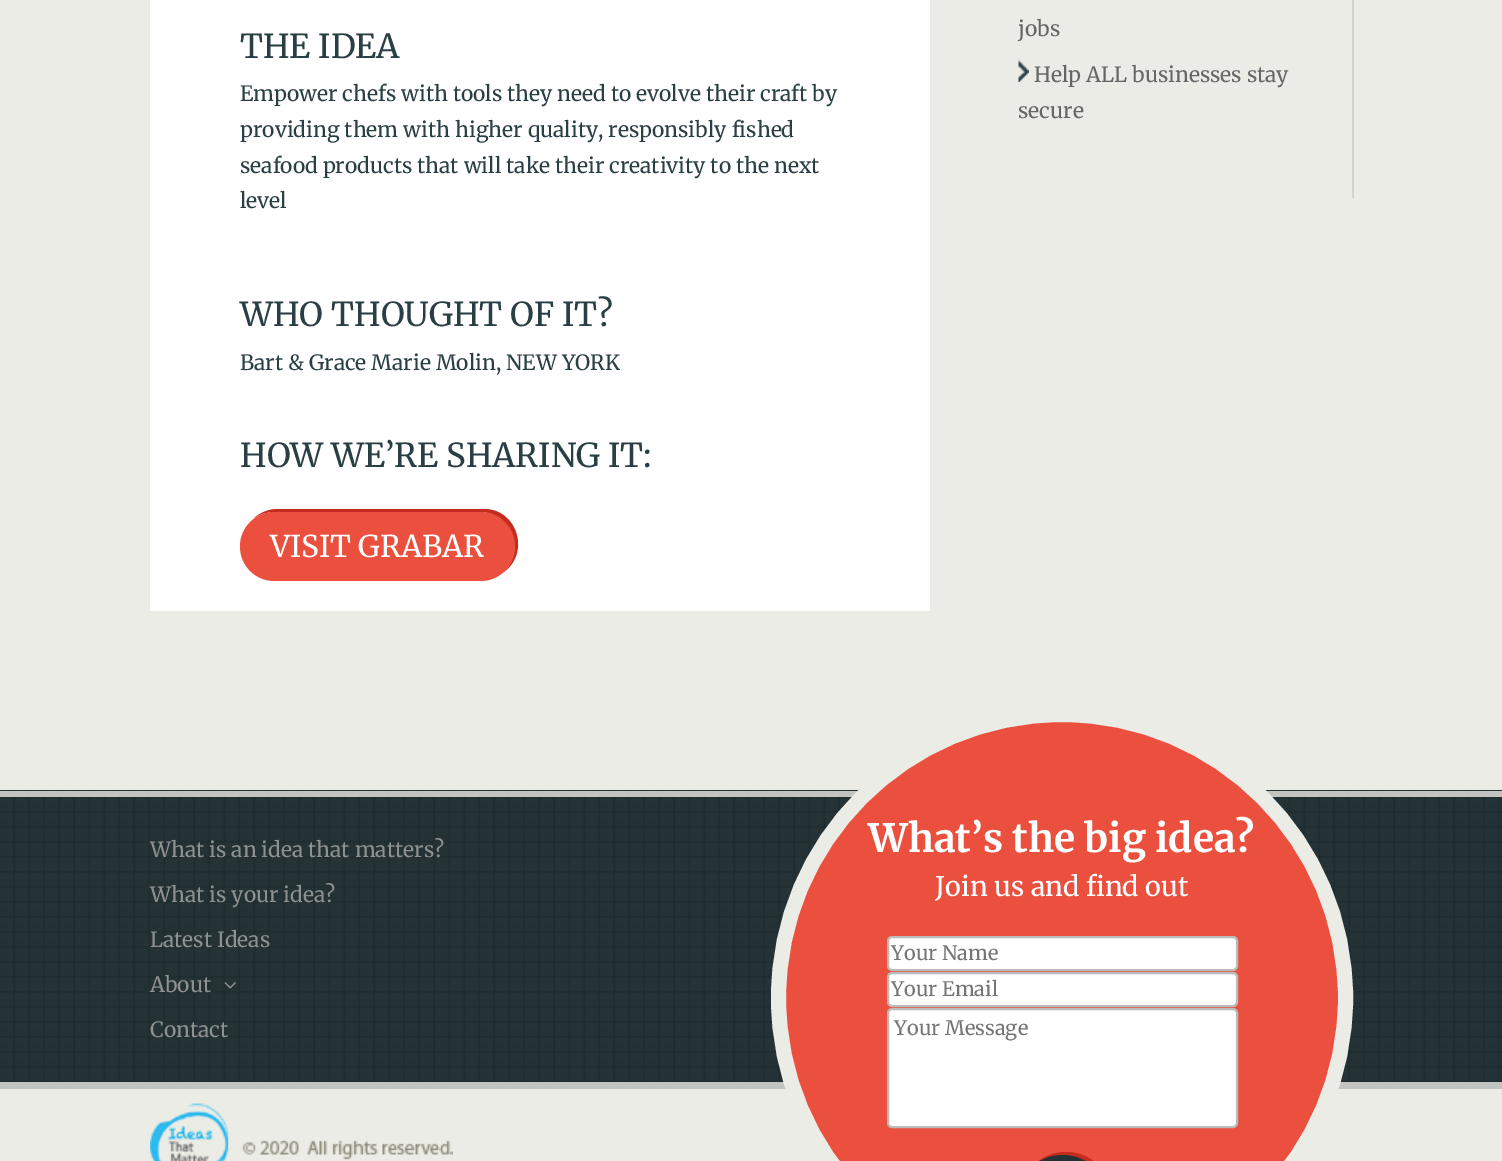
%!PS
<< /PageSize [1502 1161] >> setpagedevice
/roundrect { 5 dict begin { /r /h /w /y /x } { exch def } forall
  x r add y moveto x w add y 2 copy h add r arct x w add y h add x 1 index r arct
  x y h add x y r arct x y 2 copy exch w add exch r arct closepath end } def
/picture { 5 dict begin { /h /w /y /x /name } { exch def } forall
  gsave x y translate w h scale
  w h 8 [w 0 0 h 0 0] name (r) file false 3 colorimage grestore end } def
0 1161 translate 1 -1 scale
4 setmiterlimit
0.925 0.925 0.902 setrgbcolor
0 0 1502 1161 rectfill
1 setgray
150 0 780 611 rectfill
/Merriweather-Regular [33 0 0 -33 0 0] selectfont
0.165 0.247 0.267 setrgbcolor
240 58 moveto (THE IDEA) show
/Merriweather-Regular [21 0 0 -21 0 0] selectfont
240 101 moveto (Empower chefs with tools they need to evolve their craft by) show
240 137 moveto (providing them with higher quality, responsibly fished) show
240 173 moveto (seafood products that will take their creativity to the next) show
240 208 moveto (level) show
/Merriweather-Regular [33 0 0 -33 0 0] selectfont
240 326 moveto (WHO THOUGHT OF IT?) show
/Merriweather-Regular [21 0 0 -21 0 0] selectfont
240 370 moveto (Bart & Grace Marie Molin, NEW YORK) show
/Merriweather-Regular [33 0 0 -33 0 0] selectfont
240 467 moveto (HOW WE’RE SHARING IT:) show
0.776 0.169 0.125 setrgbcolor
newpath 278 509 moveto 268 509 260 513 254 518 curveto 260 514 267 512 274 512 curveto 480 512 lineto 499 512 514 527 514 546 curveto 514 557 510 566 502 573 curveto 531 555 518 509 484 509 curveto closepath fill
0.922 0.314 0.247 setrgbcolor
240 512 275 69 34.5 roundrect fill
/Merriweather-Regular [30 0 0 -30 0 0] selectfont
1 setgray
270 557 moveto (VISIT GRABAR) show
0.831 0.831 0.812 setrgbcolor
1352 0 2 198 rectfill
/Merriweather-Regular [21 0 0 -21 0 0] selectfont
0.4 setgray
1018 36 moveto (jobs) show
(img1.rgb) 1018 59 11 23 picture
1034 82 moveto (Help ALL businesses stay) show
1018 118 moveto (secure) show
(img2.rgb) 0 790 1502 292 picture
0.765 0.765 0.749 setrgbcolor
0 791 1502 6 rectfill
0 1082 1502 7 rectfill
0.561 0.565 0.565 setrgbcolor
150 857 moveto (What is an idea that matters?) show
150 902 moveto (What is your idea?) show
150 947 moveto (Latest Ideas) show
150 992 moveto (About) show
(img3.rgb) 224 982 12 7 picture
150 1037 moveto (Contact) show
0.922 0.314 0.247 setrgbcolor
newpath 1062 998 283.5 0 360 arc closepath gsave fill grestore
0.925 0.925 0.902 setrgbcolor
15 setlinewidth
stroke
/Merriweather-Bold [39 0 0 -39 0 0] selectfont
1 setgray
868 852 moveto (What’s the big idea?) show
/Merriweather-Regular [27 0 0 -27 0 0] selectfont
935 896 moveto (Join us and find out) show
888 937 349 33 4 roundrect gsave fill grestore
0.733 setgray
2 setlinewidth
stroke
/Merriweather-Regular [20 0 0 -20 0 0] selectfont
0.459 setgray
891 960 moveto (Your Name) show
1 setgray
888 973 349 33 4 roundrect gsave fill grestore
0.733 setgray
stroke
0.459 setgray
891 996 moveto (Your Email) show
1 setgray
888 1009 349 118 4 roundrect gsave fill grestore
0.733 setgray
stroke
0.459 setgray
894 1035 moveto (Your Message) show
0.776 0.169 0.125 setrgbcolor
newpath 1066 1152 moveto 1053 1152 1042 1157 1034 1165 curveto 1052 1151 1078 1152 1095 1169 curveto 1113 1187 1113 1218 1094 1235 curveto 1128 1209 1110 1152 1066 1152 curveto closepath fill
0.145 0.196 0.208 setrgbcolor
1016 1155 93 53 46.5 roundrect fill
(img4.rgb) 150 1103 303 58 picture
showpage
